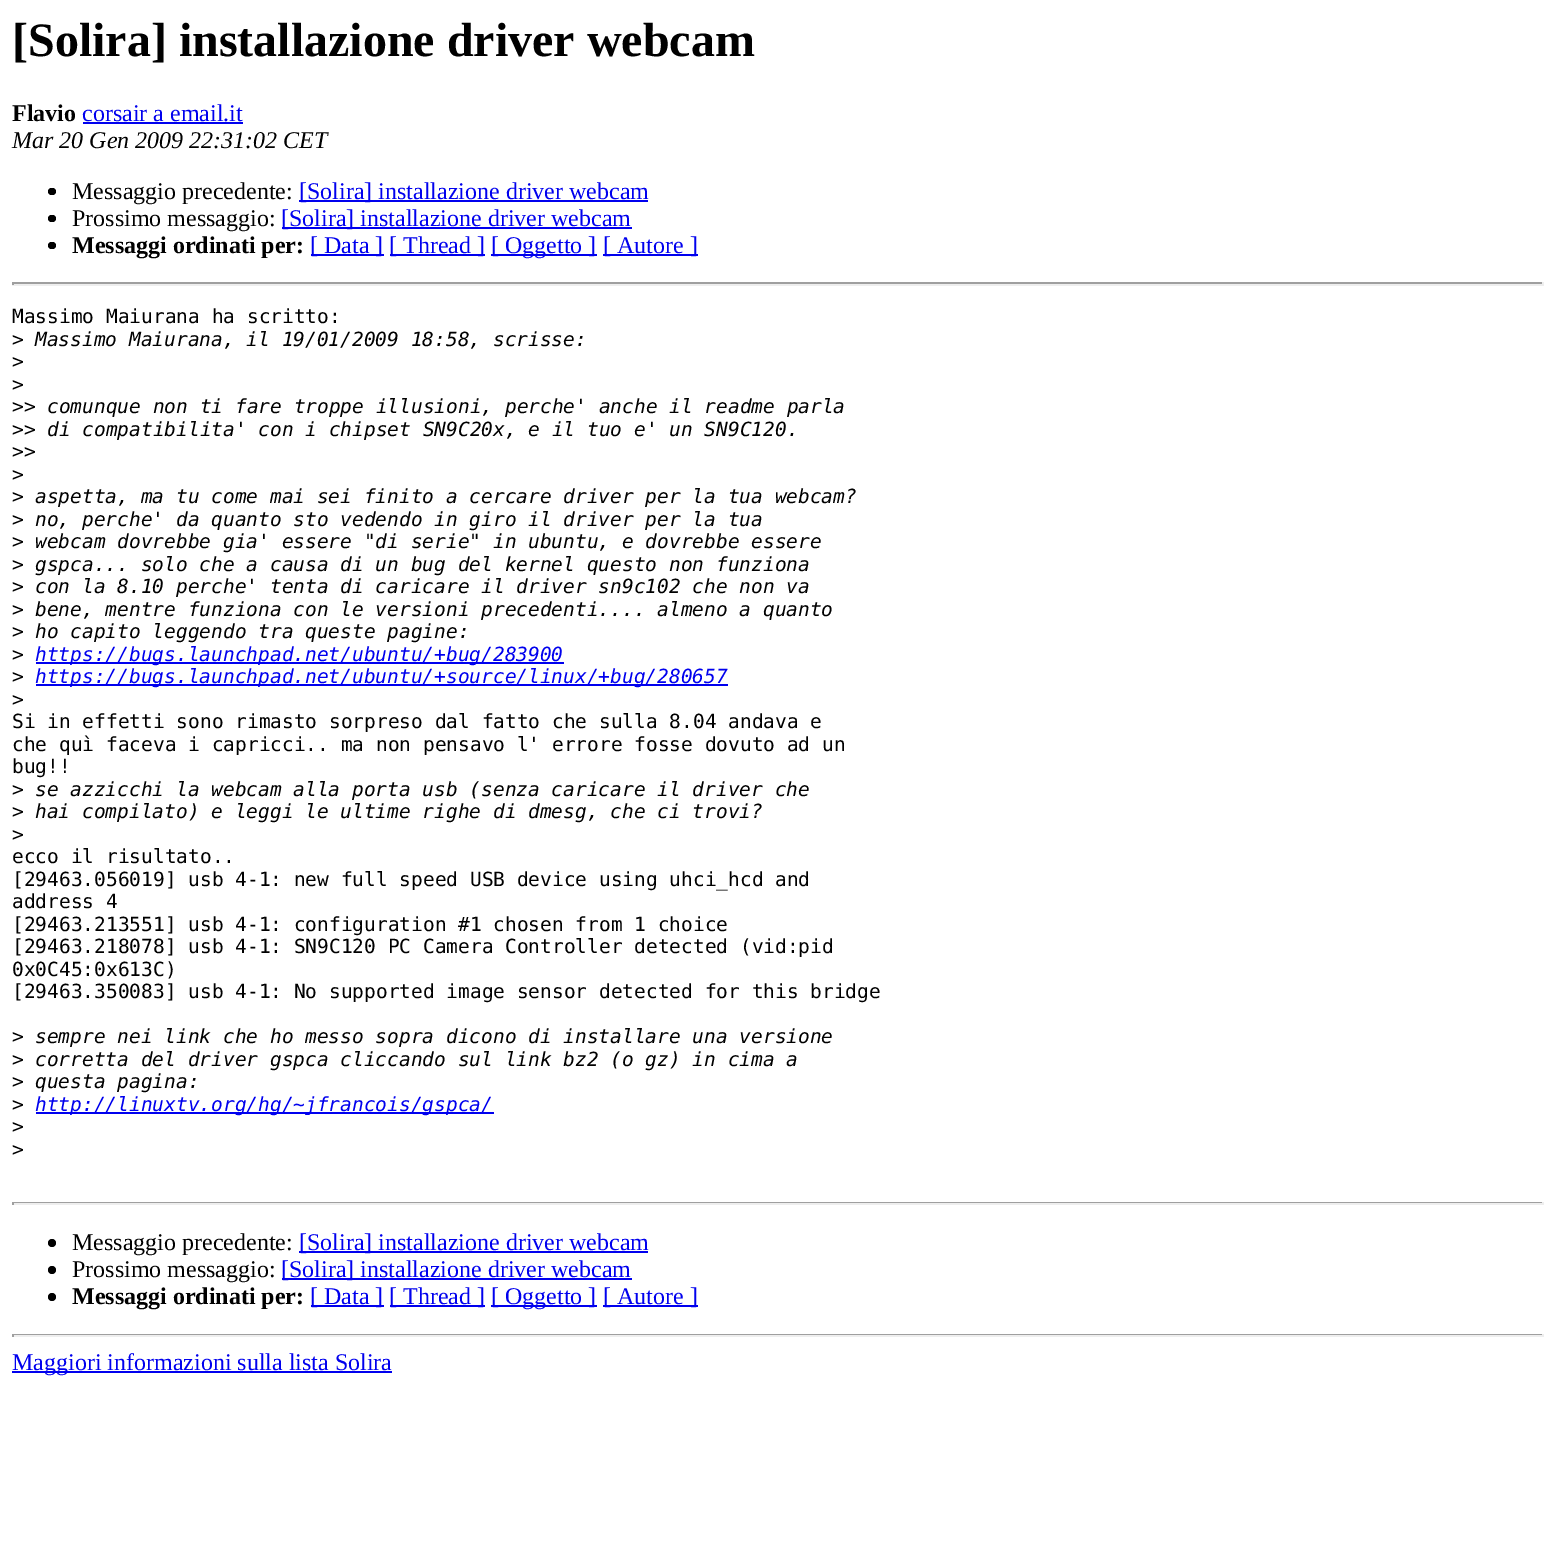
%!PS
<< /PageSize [1555 1553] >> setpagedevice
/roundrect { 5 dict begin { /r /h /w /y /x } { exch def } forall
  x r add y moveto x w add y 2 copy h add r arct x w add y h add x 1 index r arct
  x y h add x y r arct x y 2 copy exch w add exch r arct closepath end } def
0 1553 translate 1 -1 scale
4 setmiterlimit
1 setgray
0 0 1555 1553 rectfill
/LiberationSerif-Bold [48 0 0 -48 0 0] selectfont
0 setgray
12 56 moveto ([Solira] installazione driver webcam) show
/LiberationSerif-Bold [24 0 0 -24 0 0] selectfont
12 121 moveto (Flavio) show
/LiberationSerif-Regular [24 0 0 -24 0 0] selectfont
0 0 0.933 setrgbcolor
82 121 moveto (corsair a email.it) show
83 122 160 2 rectfill
/LiberationSerif-Italic [24 0 0 -24 0 0] selectfont
0 setgray
12 148 moveto (Mar 20 Gen 2009 22:31:02 CET) show
48 188 8 7 3.5 roundrect fill
/LiberationSerif-Regular [24 0 0 -24 0 0] selectfont
72 199 moveto (Messaggio precedente:) show
0 0 0.933 setrgbcolor
299 200 349 2 rectfill
299 199 moveto ([Solira] installazione driver webcam) show
0 setgray
48 215 8 7 3.5 roundrect fill
72 226 moveto (Prossimo messaggio:) show
0 0 0.933 setrgbcolor
282 227 350 2 rectfill
281 226 moveto ([Solira] installazione driver webcam) show
0 setgray
48 242 8 7 3.5 roundrect fill
/LiberationSerif-Bold [24 0 0 -24 0 0] selectfont
72 253 moveto (Messaggi ordinati per:) show
0 0 0.933 setrgbcolor
311 254 73 2 rectfill
/LiberationSerif-Regular [24 0 0 -24 0 0] selectfont
310 253 moveto ([ Data ]) show
390 254 95 2 rectfill
389 253 moveto ([ Thread ]) show
491 254 106 2 rectfill
491 253 moveto ([ Oggetto ]) show
603 254 95 2 rectfill
603 253 moveto ([ Autore ]) show
0.624 setgray
12 282 1532 2 rectfill
0.933 setgray
1542 282 2 3 rectfill
12 284 1532 2 rectfill
0.624 setgray
12 282 2 3 rectfill
/DejaVuSansMono-Regular [19.5 0 0 -19.5 0 0] selectfont
0 setgray
12 323 moveto (Massimo Maiurana ha scritto:) show
12 346 moveto (>) show
/DejaVuSansMono-Italic [19.5 0 0 -19.5 0 0] selectfont
35 346 moveto (Massimo Maiurana, il 19/01/2009 18:58, scrisse:) show
/DejaVuSansMono-Regular [19.5 0 0 -19.5 0 0] selectfont
12 368 moveto (>) show
12 391 moveto (>) show
12 413 moveto (>>) show
/DejaVuSansMono-Italic [19.5 0 0 -19.5 0 0] selectfont
47 413 moveto (comunque non ti fare troppe illusioni, perche' anche il readme parla) show
/DejaVuSansMono-Regular [19.5 0 0 -19.5 0 0] selectfont
12 436 moveto (>>) show
/DejaVuSansMono-Italic [19.5 0 0 -19.5 0 0] selectfont
47 436 moveto (di compatibilita' con i chipset SN9C20x, e il tuo e' un SN9C120.) show
/DejaVuSansMono-Regular [19.5 0 0 -19.5 0 0] selectfont
12 458 moveto (>>) show
12 481 moveto (>) show
12 503 moveto (>) show
/DejaVuSansMono-Italic [19.5 0 0 -19.5 0 0] selectfont
35 503 moveto (aspetta, ma tu come mai sei finito a cercare driver per la tua webcam?) show
/DejaVuSansMono-Regular [19.5 0 0 -19.5 0 0] selectfont
12 526 moveto (>) show
/DejaVuSansMono-Italic [19.5 0 0 -19.5 0 0] selectfont
35 526 moveto (no, perche' da quanto sto vedendo in giro il driver per la tua) show
/DejaVuSansMono-Regular [19.5 0 0 -19.5 0 0] selectfont
12 548 moveto (>) show
/DejaVuSansMono-Italic [19.5 0 0 -19.5 0 0] selectfont
35 548 moveto (webcam dovrebbe gia' essere "di serie" in ubuntu, e dovrebbe essere) show
/DejaVuSansMono-Regular [19.5 0 0 -19.5 0 0] selectfont
12 571 moveto (>) show
/DejaVuSansMono-Italic [19.5 0 0 -19.5 0 0] selectfont
35 571 moveto (gspca... solo che a causa di un bug del kernel questo non funziona) show
/DejaVuSansMono-Regular [19.5 0 0 -19.5 0 0] selectfont
12 593 moveto (>) show
/DejaVuSansMono-Italic [19.5 0 0 -19.5 0 0] selectfont
35 593 moveto (con la 8.10 perche' tenta di caricare il driver sn9c102 che non va) show
/DejaVuSansMono-Regular [19.5 0 0 -19.5 0 0] selectfont
12 616 moveto (>) show
/DejaVuSansMono-Italic [19.5 0 0 -19.5 0 0] selectfont
35 616 moveto (bene, mentre funziona con le versioni precedenti.... almeno a quanto) show
/DejaVuSansMono-Regular [19.5 0 0 -19.5 0 0] selectfont
12 638 moveto (>) show
/DejaVuSansMono-Italic [19.5 0 0 -19.5 0 0] selectfont
35 638 moveto (ho capito leggendo tra queste pagine:) show
/DejaVuSansMono-Regular [19.5 0 0 -19.5 0 0] selectfont
12 661 moveto (>) show
0 0 0.933 setrgbcolor
36 662 528 2 rectfill
/DejaVuSansMono-Italic [19.5 0 0 -19.5 0 0] selectfont
35 661 moveto (https://bugs.launchpad.net/ubuntu/+bug/283900) show
/DejaVuSansMono-Regular [19.5 0 0 -19.5 0 0] selectfont
0 setgray
12 683 moveto (>) show
0 0 0.933 setrgbcolor
36 684 692 2 rectfill
/DejaVuSansMono-Italic [19.5 0 0 -19.5 0 0] selectfont
35 683 moveto (https://bugs.launchpad.net/ubuntu/+source/linux/+bug/280657) show
/DejaVuSansMono-Regular [19.5 0 0 -19.5 0 0] selectfont
0 setgray
12 706 moveto (>) show
12 728 moveto (Si in effetti sono rimasto sorpreso dal fatto che sulla 8.04 andava e) show
12 751 moveto (che quì faceva i capricci.. ma non pensavo l' errore fosse dovuto ad un) show
12 773 moveto (bug!!) show
12 796 moveto (>) show
/DejaVuSansMono-Italic [19.5 0 0 -19.5 0 0] selectfont
35 796 moveto (se azzicchi la webcam alla porta usb \(senza caricare il driver che) show
/DejaVuSansMono-Regular [19.5 0 0 -19.5 0 0] selectfont
12 818 moveto (>) show
/DejaVuSansMono-Italic [19.5 0 0 -19.5 0 0] selectfont
35 818 moveto (hai compilato\) e leggi le ultime righe di dmesg, che ci trovi?) show
/DejaVuSansMono-Regular [19.5 0 0 -19.5 0 0] selectfont
12 841 moveto (>) show
12 863 moveto (ecco il risultato..) show
12 886 moveto ([29463.056019] usb 4-1: new full speed USB device using uhci_hcd and) show
12 908 moveto (address 4) show
12 931 moveto ([29463.213551] usb 4-1: configuration #1 chosen from 1 choice) show
12 953 moveto ([29463.218078] usb 4-1: SN9C120 PC Camera Controller detected \(vid:pid) show
12 976 moveto (0x0C45:0x613C\)) show
12 998 moveto ([29463.350083] usb 4-1: No supported image sensor detected for this bridge) show
12 1043 moveto (>) show
/DejaVuSansMono-Italic [19.5 0 0 -19.5 0 0] selectfont
35 1043 moveto (sempre nei link che ho messo sopra dicono di installare una versione) show
/DejaVuSansMono-Regular [19.5 0 0 -19.5 0 0] selectfont
12 1066 moveto (>) show
/DejaVuSansMono-Italic [19.5 0 0 -19.5 0 0] selectfont
35 1066 moveto (corretta del driver gspca cliccando sul link bz2 \(o gz\) in cima a) show
/DejaVuSansMono-Regular [19.5 0 0 -19.5 0 0] selectfont
12 1088 moveto (>) show
/DejaVuSansMono-Italic [19.5 0 0 -19.5 0 0] selectfont
35 1088 moveto (questa pagina:) show
/DejaVuSansMono-Regular [19.5 0 0 -19.5 0 0] selectfont
12 1111 moveto (>) show
0 0 0.933 setrgbcolor
36 1112 458 2 rectfill
/DejaVuSansMono-Italic [19.5 0 0 -19.5 0 0] selectfont
35 1111 moveto (http://linuxtv.org/hg/~jfrancois/gspca/) show
/DejaVuSansMono-Regular [19.5 0 0 -19.5 0 0] selectfont
0 setgray
12 1133 moveto (>) show
12 1156 moveto (>) show
0.624 setgray
12 1202 1532 1 rectfill
0.933 setgray
1542 1202 2 3 rectfill
12 1203 1532 2 rectfill
0.624 setgray
12 1202 2 3 rectfill
0 setgray
newpath 52 1243 4 0 360 arc closepath fill
/LiberationSerif-Regular [24 0 0 -24 0 0] selectfont
72 1250 moveto (Messaggio precedente:) show
0 0 0.933 setrgbcolor
299 1251 349 2 rectfill
299 1250 moveto ([Solira] installazione driver webcam) show
0 setgray
newpath 52 1270 4 0 360 arc closepath fill
72 1277 moveto (Prossimo messaggio:) show
0 0 0.933 setrgbcolor
282 1278 350 2 rectfill
281 1277 moveto ([Solira] installazione driver webcam) show
0 setgray
newpath 52 1297 4 0 360 arc closepath fill
/LiberationSerif-Bold [24 0 0 -24 0 0] selectfont
72 1304 moveto (Messaggi ordinati per:) show
0 0 0.933 setrgbcolor
311 1305 73 2 rectfill
/LiberationSerif-Regular [24 0 0 -24 0 0] selectfont
310 1304 moveto ([ Data ]) show
390 1305 95 2 rectfill
389 1304 moveto ([ Thread ]) show
491 1305 106 2 rectfill
491 1304 moveto ([ Oggetto ]) show
603 1305 95 2 rectfill
603 1304 moveto ([ Autore ]) show
0.624 setgray
12 1334 1532 1 rectfill
0.933 setgray
1542 1334 2 3 rectfill
12 1335 1532 2 rectfill
0.624 setgray
12 1334 2 3 rectfill
0 0 0.933 setrgbcolor
12 1371 380 2 rectfill
12 1370 moveto (Maggiori informazioni sulla lista Solira) show
showpage
